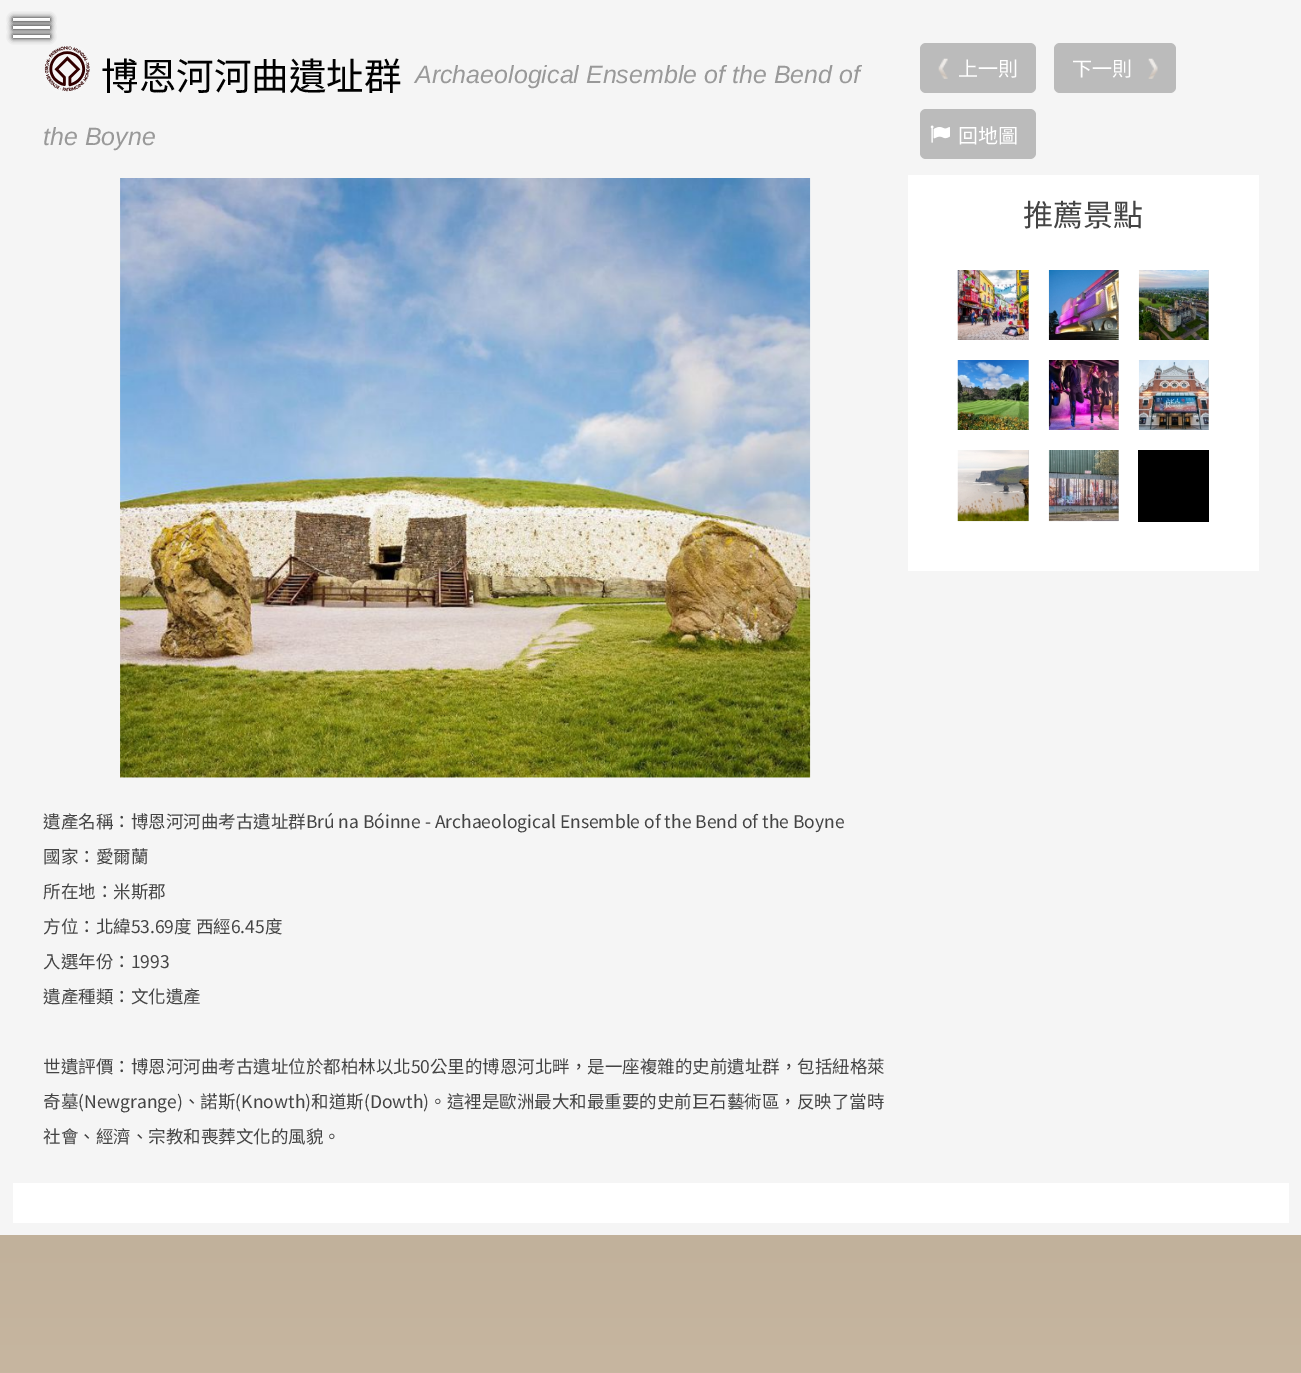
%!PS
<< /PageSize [1301 1373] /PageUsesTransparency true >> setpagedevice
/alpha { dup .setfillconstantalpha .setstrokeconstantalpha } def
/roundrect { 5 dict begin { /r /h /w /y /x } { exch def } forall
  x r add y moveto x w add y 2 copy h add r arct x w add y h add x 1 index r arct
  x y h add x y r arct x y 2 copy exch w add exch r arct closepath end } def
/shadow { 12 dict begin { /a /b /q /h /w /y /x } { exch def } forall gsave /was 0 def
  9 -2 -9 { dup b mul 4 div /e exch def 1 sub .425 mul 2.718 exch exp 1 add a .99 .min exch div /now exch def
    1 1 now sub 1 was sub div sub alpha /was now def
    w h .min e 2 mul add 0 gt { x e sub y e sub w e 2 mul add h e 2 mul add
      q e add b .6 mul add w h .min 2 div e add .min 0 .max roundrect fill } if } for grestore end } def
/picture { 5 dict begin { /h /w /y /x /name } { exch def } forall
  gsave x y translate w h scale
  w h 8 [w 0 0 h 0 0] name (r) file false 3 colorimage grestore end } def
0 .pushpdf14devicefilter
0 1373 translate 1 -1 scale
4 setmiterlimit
1 setgray
0 0 1301 1373 rectfill
gsave newpath 0 1235 moveto 1301 1235 lineto 1301 1373 lineto 0 1373 lineto closepath clip newpath
<< /ShadingType 2 /ColorSpace /DeviceRGB /Coords [651 0 651 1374] /Extend [true true] /Function << /FunctionType 2 /Domain [0 1] /C0 [0.553 0.506 0.447] /C1 [0.78 0.714 0.627] /N 1 >> >> shfill grestore
0.961 setgray
0 0 1301 1235 rectfill
0 setgray
13 18 37 3 0 3 1 shadow
1 setgray
13 18 37 3 rectfill
0 setgray
13 26 37 3 0 3 1 shadow
1 setgray
13 26 37 3 rectfill
(img1.rgb) 44 46 46 46 picture
0 setgray
13 35 37 3 0 3 1 shadow
1 setgray
13 35 37 3 rectfill
/NotoSansTC-Regular [37.5 0 0 -37.5 0 0] selectfont
0 setgray
101 90 moveto (博恩河河曲遺址群) show
/LiberationSans-Italic [25 0 0 -25 0 0] selectfont
0.6 setgray
415 83 moveto (Archaeological Ensemble of the Bend of) show
43 145 moveto (the Boyne) show
(img2.rgb) 120 178 691 600 picture
/NotoSansTC-Regular [17.5 0 0 -17.5 0 0] selectfont
0.267 setgray
43 828 moveto (遺產名稱：博恩河河曲考古遺址群Brú na Bóinne - Archaeological Ensemble of the Bend of the Boyne) show
43 863 moveto (國家：愛爾蘭) show
43 898 moveto (所在地：米斯郡) show
43 933 moveto (方位：北緯53.69度 西經6.45度) show
43 968 moveto (入選年份：1993) show
43 1003 moveto (遺產種類：文化遺產) show
43 1073 moveto (世遺評價：博恩河河曲考古遺址位於都柏林以北50公里的博恩河北畔，是一座複雜的史前遺址群，包括紐格萊) show
43 1108 moveto (奇墓\(Newgrange\)、諾斯\(Knowth\)和道斯\(Dowth\)。這裡是歐洲最大和最重要的史前巨石藝術區，反映了當時) show
43 1143 moveto (社會、經濟、宗教和喪葬文化的風貌。) show
0.733 setgray
920 43 116 50 6 roundrect fill
(img3.rgb) 938 58 10 21 picture
/NotoSansTC-Regular [20 0 0 -20 0 0] selectfont
1 setgray
958 76 moveto (上一則) show
0.733 setgray
1054 43 122 50 6 roundrect fill
1 setgray
1072 76 moveto (下一則) show
(img4.rgb) 1148 58 10 21 picture
0.733 setgray
920 109 116 50 6 roundrect fill
(img5.rgb) 930 125 20 18 picture
1 setgray
958 143 moveto (回地圖) show
908 175 351 396 rectfill
/NotoSansTC-Regular [30 0 0 -30 0 0] selectfont
0.267 setgray
1023 226 moveto (推薦景點) show
0.8 setgray
1028 270 1 70 rectfill
(img6.rgb) 957 270 72 70 picture
1118 270 1 70 rectfill
(img7.rgb) 1048 270 71 70 picture
1208 270 1 70 rectfill
(img8.rgb) 1138 270 71 70 picture
1028 360 1 70 rectfill
(img9.rgb) 957 360 72 70 picture
1118 360 1 70 rectfill
(img10.rgb) 1048 360 71 70 picture
1208 360 1 70 rectfill
(img11.rgb) 1138 360 71 70 picture
1028 450 1 71 rectfill
(img12.rgb) 957 450 72 72 picture
1118 450 1 71 rectfill
(img13.rgb) 1048 450 71 72 picture
0 setgray
1138 450 71 72 rectfill
1 setgray
13 1183 1276 40 rectfill
.poppdf14devicefilter showpage
